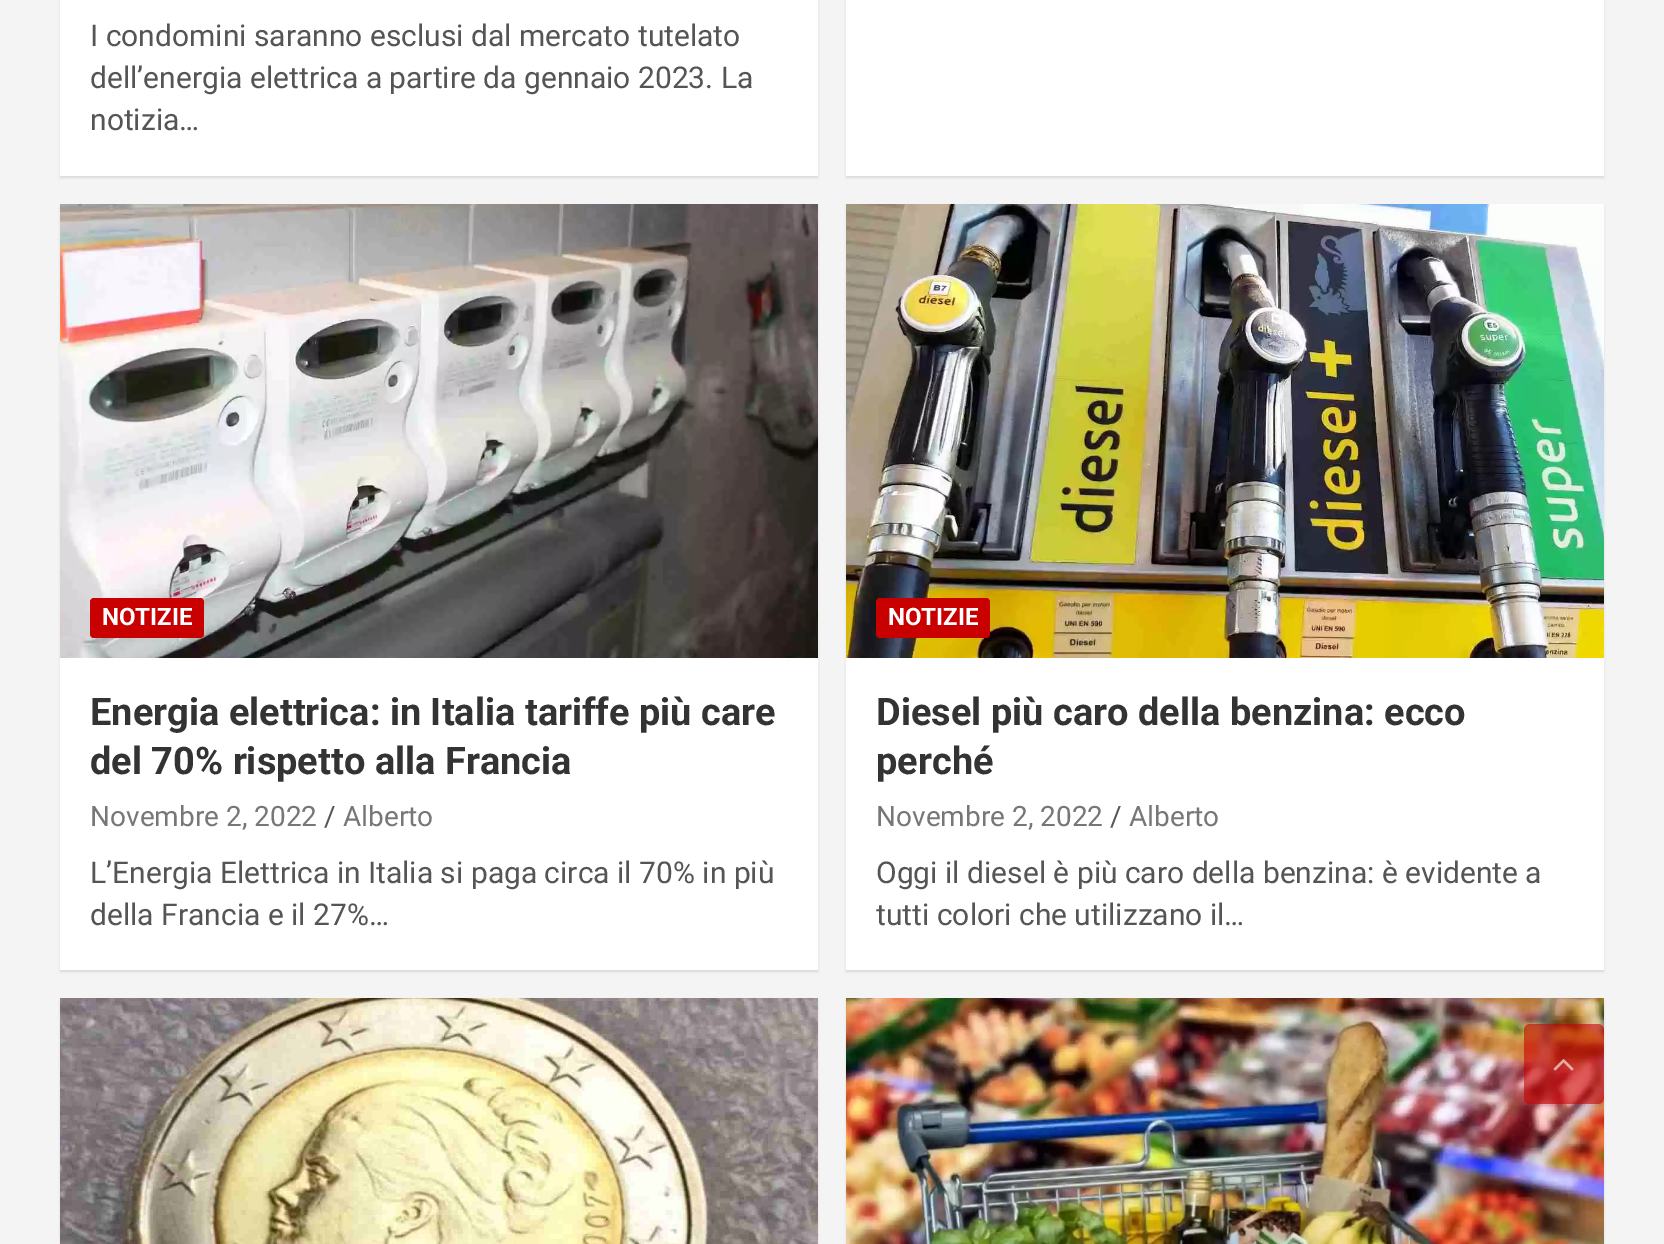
%!PS
<< /PageSize [1664 1244] /PageUsesTransparency true >> setpagedevice
/alpha { dup .setfillconstantalpha .setstrokeconstantalpha } def
/roundrect { 5 dict begin { /r /h /w /y /x } { exch def } forall
  x r add y moveto x w add y 2 copy h add r arct x w add y h add x 1 index r arct
  x y h add x y r arct x y 2 copy exch w add exch r arct closepath end } def
/shadow { 12 dict begin { /a /b /q /h /w /y /x } { exch def } forall gsave /was 0 def
  9 -2 -9 { dup b mul 4 div /e exch def 1 sub .425 mul 2.718 exch exp 1 add a .99 .min exch div /now exch def
    1 1 now sub 1 was sub div sub alpha /was now def
    w h .min e 2 mul add 0 gt { x e sub y e sub w e 2 mul add h e 2 mul add
      q e add b .6 mul add w h .min 2 div e add .min 0 .max roundrect fill } if } for grestore end } def
/picture { 5 dict begin { /h /w /y /x /name } { exch def } forall
  gsave x y translate w h scale
  w h 8 [w 0 0 h 0 0] name (r) file false 3 colorimage grestore end } def
0 .pushpdf14devicefilter
0 1244 translate 1 -1 scale
4 setmiterlimit
0.957 setgray
0 0 1664 1244 rectfill
0 setgray
60 -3 758 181 0 1 0.1 shadow
1 setgray
60 0 758 176 rectfill
/Roboto-Regular [30 0 0 -30 0 0] selectfont
0.333 setgray
90 46 moveto (I condomini saranno esclusi dal mercato tutelato) show
90 88 moveto (dell’energia elettrica a partire da gennaio 2023. La) show
90 130 moveto (notizia…) show
0 setgray
846 -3 758 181 0 1 0.1 shadow
1 setgray
846 0 758 176 rectfill
0 setgray
60 206 758 766 0 1 0.1 shadow
1 setgray
60 658 758 312 rectfill
(img1.rgb) 60 204 758 454 picture
0.784 0 0 setrgbcolor
90 598 114 40 4 roundrect fill
/Roboto-Bold [24 0 0 -24 0 0] selectfont
1 setgray
102 625 moveto (NOTIZIE) show
/Roboto-Bold [38 0 0 -38 0 0] selectfont
0.2 setgray
90 725 moveto (Energia elettrica: in Italia tariffe più care) show
90 774 moveto (del 70% rispetto alla Francia) show
/Roboto-Regular [28 0 0 -28 0 0] selectfont
0.467 setgray
90 826 moveto (Novembre 2, 2022) show
0.333 setgray
324 826 moveto (/) show
0.467 setgray
343 826 moveto (Alberto) show
/Roboto-Regular [30 0 0 -30 0 0] selectfont
0.333 setgray
90 883 moveto (L’Energia Elettrica in Italia si paga circa il 70% in più) show
90 925 moveto (della Francia e il 27%…) show
0 setgray
846 206 758 766 0 1 0.1 shadow
1 setgray
846 658 758 312 rectfill
(img2.rgb) 846 204 758 454 picture
0.784 0 0 setrgbcolor
876 598 114 40 4 roundrect fill
/Roboto-Bold [24 0 0 -24 0 0] selectfont
1 setgray
888 625 moveto (NOTIZIE) show
/Roboto-Bold [38 0 0 -38 0 0] selectfont
0.2 setgray
876 725 moveto (Diesel più caro della benzina: ecco) show
876 774 moveto (perché) show
/Roboto-Regular [28 0 0 -28 0 0] selectfont
0.467 setgray
876 826 moveto (Novembre 2, 2022) show
0.333 setgray
1110 826 moveto (/) show
0.467 setgray
1129 826 moveto (Alberto) show
/Roboto-Regular [30 0 0 -30 0 0] selectfont
0.333 setgray
876 883 moveto (Oggi il diesel è più caro della benzina: è evidente a) show
876 925 moveto (tutti colori che utilizzano il…) show
0 setgray
60 1000 758 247 0 1 0.1 shadow
(img3.rgb) 60 998 758 246 picture
846 1000 758 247 0 1 0.1 shadow
(img4.rgb) 846 998 758 246 picture
0.6 alpha
0.784 0 0 setrgbcolor
1524 1024 80 80 6 roundrect fill
1 alpha
(img5.rgb) 1553 1059 21 12 picture
.poppdf14devicefilter showpage
